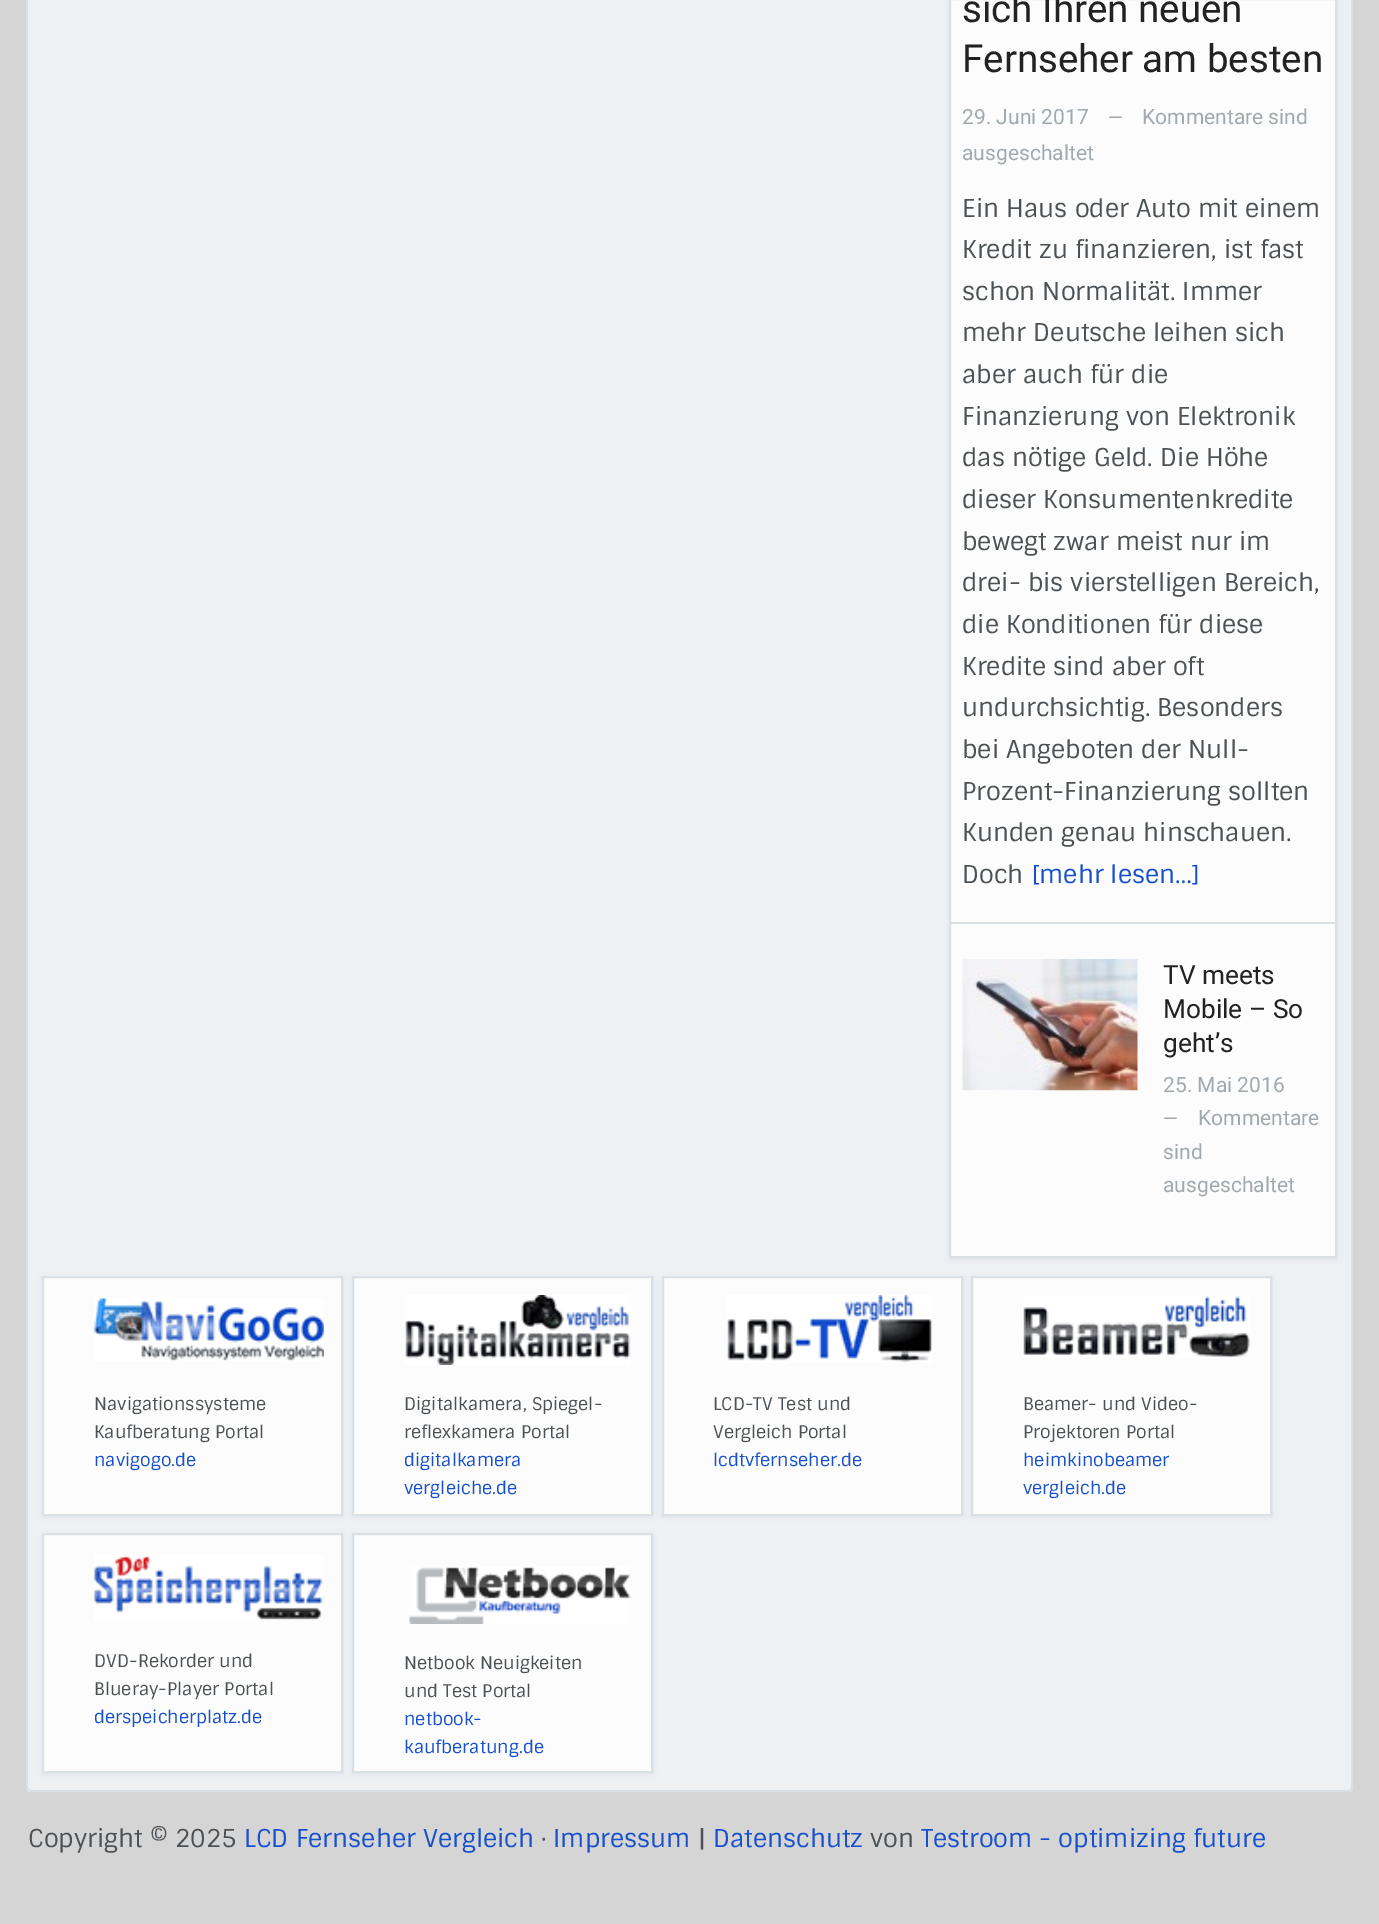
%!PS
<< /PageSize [1379 1924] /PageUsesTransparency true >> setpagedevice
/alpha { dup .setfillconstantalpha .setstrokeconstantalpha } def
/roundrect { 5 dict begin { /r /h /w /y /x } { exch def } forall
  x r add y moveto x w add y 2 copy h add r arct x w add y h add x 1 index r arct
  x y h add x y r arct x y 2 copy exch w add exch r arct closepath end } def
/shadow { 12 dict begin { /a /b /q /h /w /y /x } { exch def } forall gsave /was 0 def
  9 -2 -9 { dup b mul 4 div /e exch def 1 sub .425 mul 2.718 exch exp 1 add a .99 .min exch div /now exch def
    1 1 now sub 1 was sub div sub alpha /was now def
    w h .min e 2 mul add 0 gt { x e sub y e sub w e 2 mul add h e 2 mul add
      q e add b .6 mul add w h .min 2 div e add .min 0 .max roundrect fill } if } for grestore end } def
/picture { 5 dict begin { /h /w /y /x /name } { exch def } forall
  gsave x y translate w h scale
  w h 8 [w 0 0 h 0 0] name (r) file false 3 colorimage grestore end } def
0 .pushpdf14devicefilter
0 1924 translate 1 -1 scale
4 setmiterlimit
0.835 setgray
0 0 1379 1924 rectfill
0.933 0.945 0.953 setrgbcolor
newpath 26 -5 moveto 1353 -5 lineto 1353 1787 lineto 1353 1790 1351 1792 1348 1792 curveto 31 1792 lineto 28 1792 26 1790 26 1787 curveto closepath fill
0.851 0.878 0.902 setrgbcolor
newpath 26 -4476 moveto 1353 -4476 lineto 1353 1787 lineto 1353 1790 1350 1792 1348 1792 curveto 32 1792 lineto 29 1792 26 1790 26 1787 curveto closepath 28 -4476 moveto 1351 -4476 lineto 1351 1787 lineto 1351 1789 1349 1790 1348 1790 curveto 32 1790 lineto 30 1790 28 1789 28 1787 curveto closepath eofill
0.29 0.373 0.455 setrgbcolor
949 -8 388 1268 0 2.5 0.08 shadow
0.988 setgray
newpath 950 -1 moveto 1336 -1 lineto 1336 1257 lineto 950 1257 lineto closepath gsave fill grestore
0.851 0.878 0.902 setrgbcolor
2 setlinewidth
stroke
950 922 385 2 rectfill
/Roboto-Regular [38.5 0 0 -38.5 0 0] selectfont
0.133 setgray
962 22 moveto (sich Ihren neuen) show
962 72 moveto (Fernseher am besten) show
/Roboto-Regular [21 0 0 -21 0 0] selectfont
0.631 0.663 0.686 setrgbcolor
962 124 moveto (29. Juni 2017) show
/Roboto-Regular [19 0 0 -19 0 0] selectfont
1108 124 moveto (—) show
/Roboto-Regular [21 0 0 -21 0 0] selectfont
1142 124 moveto (Kommentare sind) show
962 160 moveto (ausgeschaltet) show
/Sintony-Regular [24.5 0 0 -24.5 0 0] selectfont
0.298 0.318 0.333 setrgbcolor
962 217 moveto (Ein Haus oder Auto mit einem) show
962 258 moveto (Kredit zu finanzieren, ist fast) show
962 300 moveto (schon Normalität. Immer) show
962 341 moveto (mehr Deutsche leihen sich) show
962 383 moveto (aber auch für die) show
962 425 moveto (Finanzierung von Elektronik) show
962 466 moveto (das nötige Geld. Die Höhe) show
962 508 moveto (dieser Konsumentenkredite) show
962 550 moveto (bewegt zwar meist nur im) show
962 591 moveto (drei- bis vierstelligen Bereich,) show
962 633 moveto (die Konditionen für diese) show
962 675 moveto (Kredite sind aber oft) show
962 716 moveto (undurchsichtig. Besonders) show
962 758 moveto (bei Angeboten der Null-) show
962 800 moveto (Prozent-Finanzierung sollten) show
962 841 moveto (Kunden genau hinschauen.) show
962 883 moveto (Doch) show
0.086 0.314 0.804 setrgbcolor
1032 883 moveto ([mehr lesen…]) show
(img1.rgb) 962 959 176 132 picture
/Roboto-Regular [26.25 0 0 -26.25 0 0] selectfont
0.133 setgray
1163 984 moveto (TV meets) show
1163 1018 moveto (Mobile – So) show
1163 1052 moveto (geht’s) show
/Roboto-Regular [21 0 0 -21 0 0] selectfont
0.631 0.663 0.686 setrgbcolor
1163 1092 moveto (25. Mai 2016) show
/Roboto-Regular [19 0 0 -19 0 0] selectfont
1163 1125 moveto (—) show
/Roboto-Regular [21 0 0 -21 0 0] selectfont
1198 1125 moveto (Kommentare) show
1163 1159 moveto (sind) show
1163 1192 moveto (ausgeschaltet) show
0.29 0.373 0.455 setrgbcolor
42 1278 301 239 0 2.5 0.08 shadow
0.988 setgray
newpath 43 1277 moveto 342 1277 lineto 342 1515 lineto 43 1515 lineto closepath gsave fill grestore
0.851 0.878 0.902 setrgbcolor
stroke
(img2.rgb) 94 1298 230 63 picture
/Sintony-Regular [17.5 0 0 -17.5 0 0] selectfont
0.298 0.318 0.333 setrgbcolor
94 1410 moveto (Navigationssysteme) show
94 1438 moveto (Kaufberatung Portal) show
0.086 0.314 0.804 setrgbcolor
94 1466 moveto (navigogo.de) show
0.29 0.373 0.455 setrgbcolor
352 1278 301 239 0 2.5 0.08 shadow
0.988 setgray
newpath 353 1277 moveto 652 1277 lineto 652 1515 lineto 353 1515 lineto closepath gsave fill grestore
0.851 0.878 0.902 setrgbcolor
stroke
(img3.rgb) 405 1295 226 70 picture
0.298 0.318 0.333 setrgbcolor
404 1410 moveto (Digitalkamera, Spiegel-) show
404 1438 moveto (reflexkamera Portal) show
0.086 0.314 0.804 setrgbcolor
404 1466 moveto (digitalkamera) show
404 1494 moveto (vergleiche.de) show
0.29 0.373 0.455 setrgbcolor
662 1278 301 239 0 2.5 0.08 shadow
0.988 setgray
newpath 663 1277 moveto 962 1277 lineto 962 1515 lineto 663 1515 lineto closepath gsave fill grestore
0.851 0.878 0.902 setrgbcolor
stroke
(img4.rgb) 727 1295 205 68 picture
0.298 0.318 0.333 setrgbcolor
713 1410 moveto (LCD-TV Test und) show
713 1438 moveto (Vergleich Portal) show
0.086 0.314 0.804 setrgbcolor
713 1466 moveto (lcdtvfernseher.de) show
0.29 0.373 0.455 setrgbcolor
971 1278 301 239 0 2.5 0.08 shadow
0.988 setgray
newpath 972 1277 moveto 1271 1277 lineto 1271 1515 lineto 972 1515 lineto closepath gsave fill grestore
0.851 0.878 0.902 setrgbcolor
stroke
(img5.rgb) 1023 1296 227 62 picture
0.298 0.318 0.333 setrgbcolor
1023 1410 moveto (Beamer- und Video-) show
1023 1438 moveto (Projektoren Portal) show
0.086 0.314 0.804 setrgbcolor
1023 1466 moveto (heimkinobeamer) show
1023 1494 moveto (vergleich.de) show
0.29 0.373 0.455 setrgbcolor
42 1535 301 240 0 2.5 0.08 shadow
0.988 setgray
newpath 43 1534 moveto 342 1534 lineto 342 1772 lineto 43 1772 lineto closepath gsave fill grestore
0.851 0.878 0.902 setrgbcolor
stroke
(img6.rgb) 94 1555 229 65 picture
0.298 0.318 0.333 setrgbcolor
94 1667 moveto (DVD-Rekorder und) show
94 1695 moveto (Blueray-Player Portal) show
0.086 0.314 0.804 setrgbcolor
94 1723 moveto (derspeicherplatz.de) show
0.29 0.373 0.455 setrgbcolor
352 1535 301 240 0 2.5 0.08 shadow
0.988 setgray
newpath 353 1534 moveto 652 1534 lineto 652 1772 lineto 353 1772 lineto closepath gsave fill grestore
0.851 0.878 0.902 setrgbcolor
stroke
(img7.rgb) 409 1567 222 57 picture
0.298 0.318 0.333 setrgbcolor
404 1669 moveto (Netbook Neuigkeiten) show
404 1697 moveto (und Test Portal) show
0.086 0.314 0.804 setrgbcolor
404 1725 moveto (netbook-) show
404 1753 moveto (kaufberatung.de) show
/Sintony-Regular [24.5 0 0 -24.5 0 0] selectfont
0.298 0.318 0.333 setrgbcolor
28 1847 moveto (Copyright © 2025) show
0.086 0.314 0.804 setrgbcolor
244 1847 moveto (LCD Fernseher Vergleich) show
0.298 0.318 0.333 setrgbcolor
541 1847 moveto (·) show
0.086 0.314 0.804 setrgbcolor
553 1847 moveto (Impressum) show
0.298 0.318 0.333 setrgbcolor
698 1847 moveto (|) show
0.086 0.314 0.804 setrgbcolor
713 1847 moveto (Datenschutz) show
0.298 0.318 0.333 setrgbcolor
870 1847 moveto (von) show
0.086 0.314 0.804 setrgbcolor
921 1847 moveto (Testroom - optimizing future) show
.poppdf14devicefilter showpage
